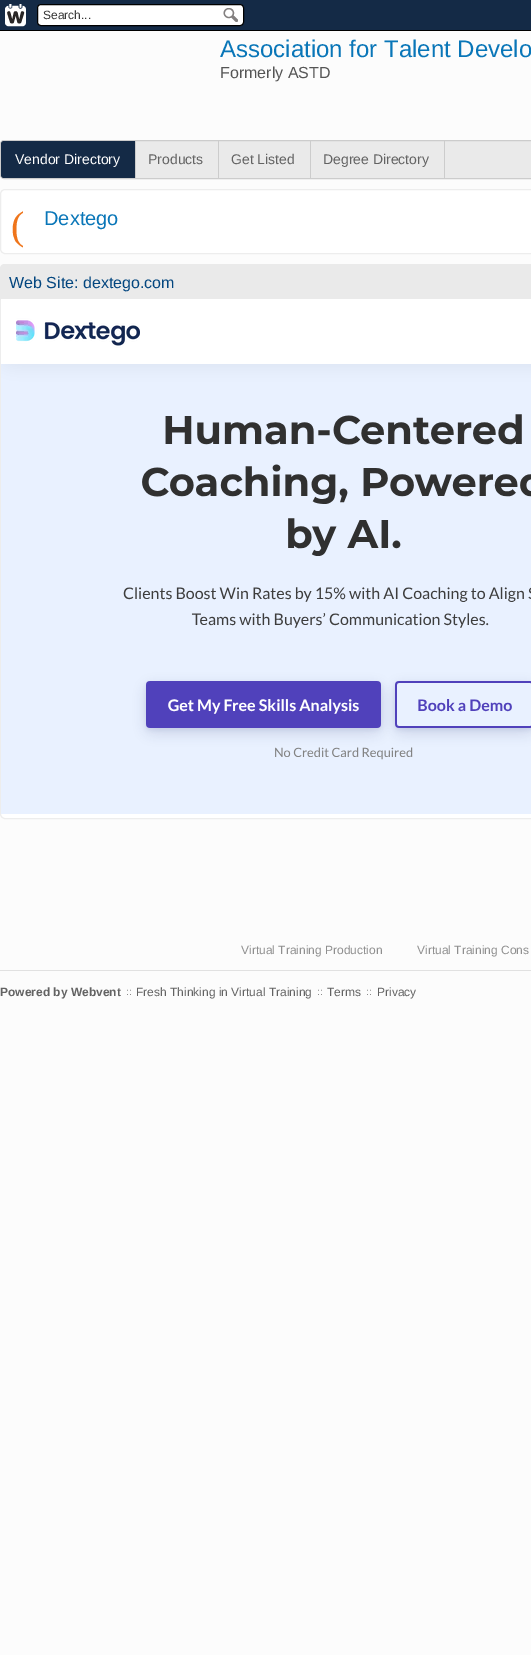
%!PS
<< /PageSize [531 1655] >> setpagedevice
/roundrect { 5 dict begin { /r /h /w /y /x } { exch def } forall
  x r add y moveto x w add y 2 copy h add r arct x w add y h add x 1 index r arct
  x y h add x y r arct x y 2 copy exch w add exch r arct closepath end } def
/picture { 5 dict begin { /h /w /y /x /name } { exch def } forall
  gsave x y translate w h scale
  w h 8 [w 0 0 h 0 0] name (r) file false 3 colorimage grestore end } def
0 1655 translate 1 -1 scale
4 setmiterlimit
0.988 setgray
0 0 531 1655 rectfill
0 setgray
0 30 531 1 rectfill
0.078 0.165 0.275 setrgbcolor
0 0 531 30 rectfill
(img1.rgb) 5 4 21 23 picture
1 setgray
37.5 4.5 206 21 3.5 roundrect gsave fill grestore
0 setgray
stroke
/LiberationSans-Regular [12 0 0 -12 0 0] selectfont
0.212 setgray
43 19 moveto (Search...) show
(img2.rgb) 223 8 15 14 picture
/LiberationSans-Regular [24 0 0 -24 0 0] selectfont
0.035 0.463 0.722 setrgbcolor
220 57 moveto (Association for Talent Develo) show
/LiberationSans-Regular [16 0 0 -16 0 0] selectfont
0.333 setgray
220 78 moveto (Formerly ASTD) show
0.918 setgray
0.5 140.5 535 38 3.5 roundrect gsave fill grestore
0.8 setgray
stroke
0.078 0.165 0.275 setrgbcolor
newpath 4 141 moveto 136 141 lineto 136 178 lineto 4 178 lineto 2.5 178 1 176.5 1 175 curveto 1 144 lineto 1 142.5 2.5 141 4 141 curveto closepath fill
/LiberationSans-Regular [14 0 0 -14 0 0] selectfont
1 setgray
15 164 moveto (Vendor Directory) show
0.8 setgray
135 141 1 37 rectfill
0.388 setgray
148 164 moveto (Products) show
0.8 setgray
218 141 1 37 rectfill
0.388 setgray
231 164 moveto (Get Listed) show
0.8 setgray
310 141 1 37 rectfill
0.388 setgray
323 164 moveto (Degree Directory) show
0.8 setgray
444 141 1 37 rectfill
1 setgray
0.5 189.5 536 64 4.5 roundrect gsave fill grestore
0.929 setgray
stroke
/LiberationSerif-Regular [40 0 0 -40 0 0] selectfont
0.937 0.459 0.106 setrgbcolor
11 239 moveto (\() show
/LiberationSans-Regular [20 0 0 -20 0 0] selectfont
0.035 0.463 0.722 setrgbcolor
44 225 moveto (Dextego) show
1 setgray
0.5 264.5 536 554 4.5 roundrect gsave fill grestore
0.929 setgray
stroke
0.918 setgray
newpath 5 264 moveto 531 264 lineto 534 264 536 266 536 269 curveto 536 300 lineto 0 300 lineto 0 269 lineto 0 266 2 264 5 264 curveto closepath fill
/LiberationSans-Regular [16 0 0 -16 0 0] selectfont
0.012 0.275 0.498 setrgbcolor
9 288 moveto (Web Site: dextego.com) show
(img3.rgb) 1 299 530 515 picture
/LiberationSans-Regular [12 0 0 -12 0 0] selectfont
0.561 setgray
241 954 moveto (Virtual Training Production) show
417 954 moveto (Virtual Training Cons) show
0.882 setgray
0 970 531 1 rectfill
/LiberationSans-Bold [12 0 0 -12 0 0] selectfont
0.388 setgray
0 996 moveto (Powered by Webvent) show
/LiberationSans-Regular [10 0 0 -10 0 0] selectfont
126 995 moveto (::) show
/LiberationSans-Regular [12 0 0 -12 0 0] selectfont
136 996 moveto (Fresh Thinking in Virtual Training) show
/LiberationSans-Regular [10 0 0 -10 0 0] selectfont
317 995 moveto (::) show
/LiberationSans-Regular [12 0 0 -12 0 0] selectfont
327 996 moveto (Terms) show
/LiberationSans-Regular [10 0 0 -10 0 0] selectfont
366 995 moveto (::) show
/LiberationSans-Regular [12 0 0 -12 0 0] selectfont
377 996 moveto (Privacy) show
showpage
